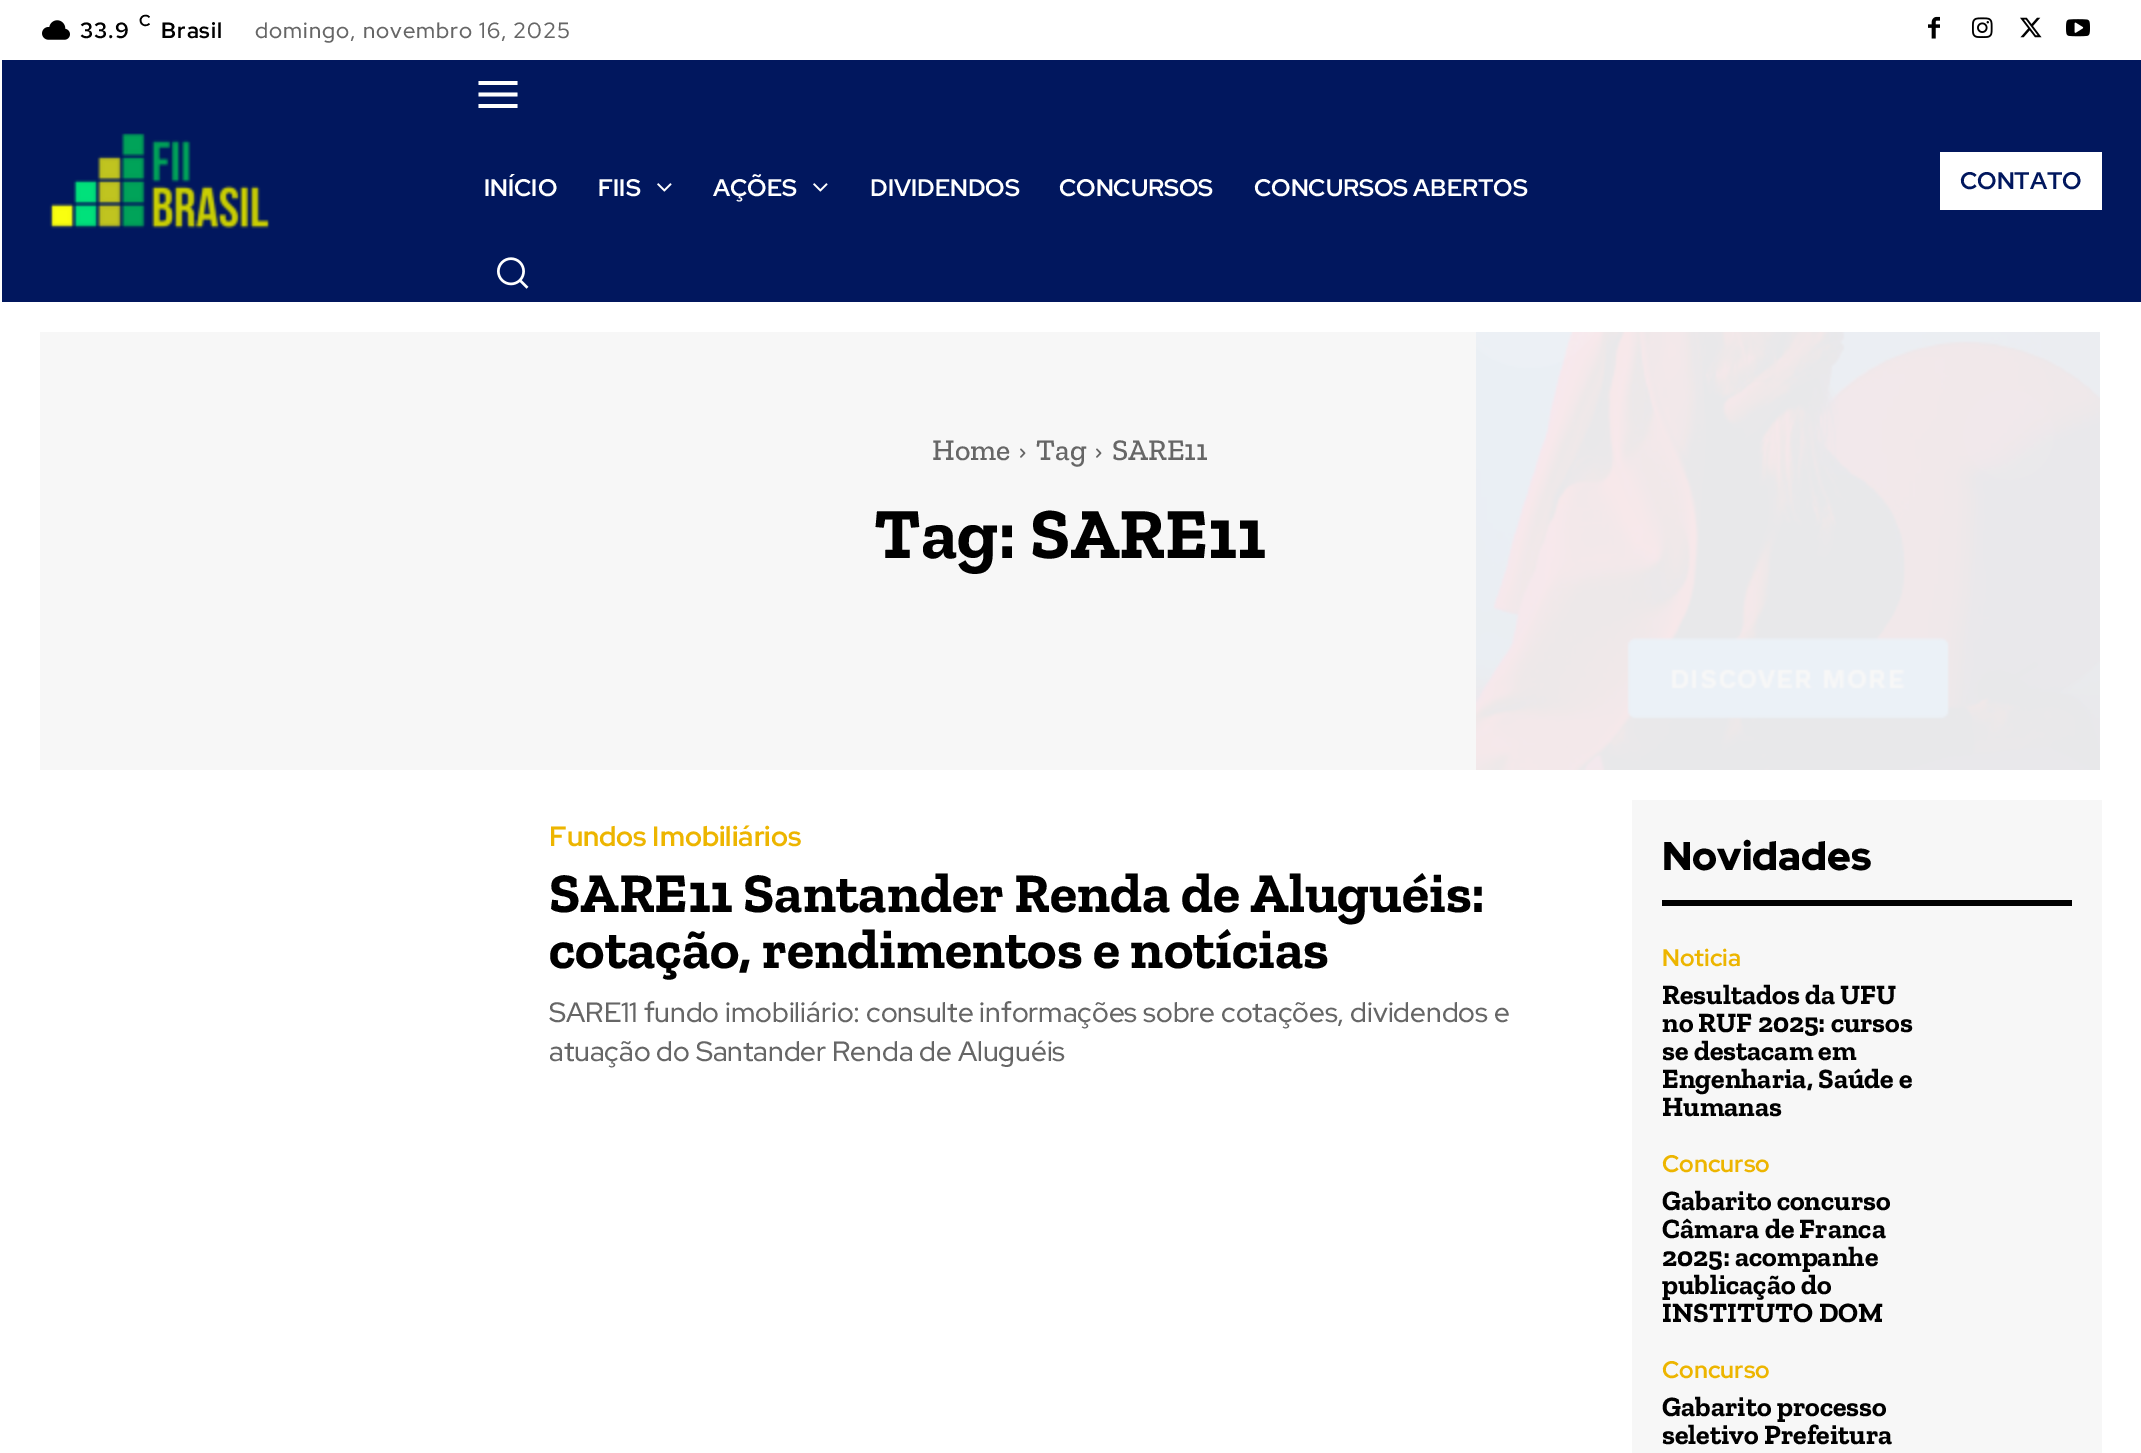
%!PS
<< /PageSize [2141 1453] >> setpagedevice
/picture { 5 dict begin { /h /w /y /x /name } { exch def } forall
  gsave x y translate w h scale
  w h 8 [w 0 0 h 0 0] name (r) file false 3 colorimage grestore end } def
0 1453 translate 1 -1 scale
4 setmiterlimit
1 setgray
0 0 2141 1453 rectfill
(img1.rgb) 42 20 28 20 picture
/RedHatDisplay-Bold [16 0 0 -16 0 0] selectfont
0 setgray
139 26 moveto 1 0 (C) ashow
/RedHatDisplay-Bold [22 0 0 -22 0 0] selectfont
80 38 moveto 1 0 (33.9) ashow
161 38 moveto 1 0 (Brasil) ashow
/RedHatDisplay-Medium [22 0 0 -22 0 0] selectfont
0.4 setgray
255 38 moveto 1 0 (domingo, novembro 16, 2025) ashow
(img2.rgb) 1928 16 12 23 picture
(img3.rgb) 1972 17 21 21 picture
(img4.rgb) 2020 17 22 21 picture
(img5.rgb) 2066 19 24 18 picture
0.004 0.09 0.369 setrgbcolor
2 60 2139 242 rectfill
(img6.rgb) 49 133 221 96 picture
1 setgray
newpath 517.5 85 moveto 478.5 85 lineto 478.5 81 lineto 517.5 81 lineto closepath 517.5 96.5 moveto 478.5 96.5 lineto 478.5 92.5 lineto 517.5 92.5 lineto closepath 517.5 108 moveto 478.5 108 lineto 478.5 104 lineto 517.5 104 lineto closepath fill
/RedHatDisplay-Bold [24 0 0 -24 0 0] selectfont
484 196 moveto (INÍCIO) show
598 196 moveto (FIIS) show
(img7.rgb) 657 183 15 9 picture
713 196 moveto (AÇÕES) show
(img7.rgb) 813 183 15 9 picture
870 196 moveto (DIVIDENDOS) show
1059 196 moveto (CONCURSOS) show
1254 196 moveto (CONCURSOS ABERTOS) show
(img8.rgb) 497 257 32 32 picture
1940 152 162 58 rectfill
0.004 0.09 0.369 setrgbcolor
1960 189 moveto (CONTATO) show
0.969 setgray
40 332 2060 438 rectfill
(img9.rgb) 1476 332 624 438 picture
/ZillaSlab-Medium [30 0 0 -30 0 0] selectfont
0.4 setgray
932 460 moveto (Home) show
(img10.rgb) 1020 448 6 10 picture
1036 460 moveto (Tag) show
(img10.rgb) 1096 448 6 10 picture
1112 460 moveto (SARE11) show
/ZillaSlab-Bold [72 0 0 -72 0 0] selectfont
0 setgray
874 558 moveto (Tag: SARE11) show
/RedHatDisplay-Bold [28 0 0 -28 0 0] selectfont
0.929 0.71 0 setrgbcolor
549 846 moveto (Fundos Imobiliários) show
/ZillaSlab-Bold [56 0 0 -56 0 0] selectfont
0 setgray
549 912 moveto (SARE11 Santander Renda de Aluguéis:) show
549 968 moveto (cotação, rendimentos e notícias) show
/RedHatDisplay-Medium [28 0 0 -28 0 0] selectfont
0.4 setgray
549 1022 moveto (SARE11 fundo imobiliário: consulte informações sobre cotações, dividendos e) show
549 1061 moveto (atuação do Santander Renda de Aluguéis) show
0.969 setgray
1632 800 470 653 rectfill
0 setgray
1662 900 410 6 rectfill
/RedHatDisplay-Black [40 0 0 -40 0 0] selectfont
1662 870 moveto (Novidades) show
/RedHatDisplay-Bold [24 0 0 -24 0 0] selectfont
0.929 0.71 0 setrgbcolor
1662 966 moveto (Noticia) show
/ZillaSlab-Bold [28 0 0 -28 0 0] selectfont
0 setgray
1662 1004 moveto (Resultados da UFU) show
1662 1032 moveto (no RUF 2025: cursos) show
1662 1060 moveto (se destacam em) show
1662 1088 moveto (Engenharia, Saúde e) show
1662 1116 moveto (Humanas) show
/RedHatDisplay-Bold [24 0 0 -24 0 0] selectfont
0.929 0.71 0 setrgbcolor
1662 1172 moveto (Concurso) show
/ZillaSlab-Bold [28 0 0 -28 0 0] selectfont
0 setgray
1662 1210 moveto (Gabarito concurso) show
1662 1238 moveto (Câmara de Franca) show
1662 1266 moveto (2025: acompanhe) show
1662 1294 moveto (publicação do) show
1662 1322 moveto (INSTITUTO DOM) show
/RedHatDisplay-Bold [24 0 0 -24 0 0] selectfont
0.929 0.71 0 setrgbcolor
1662 1378 moveto (Concurso) show
/ZillaSlab-Bold [28 0 0 -28 0 0] selectfont
0 setgray
1662 1416 moveto (Gabarito processo) show
1662 1444 moveto (seletivo Prefeitura) show
showpage
